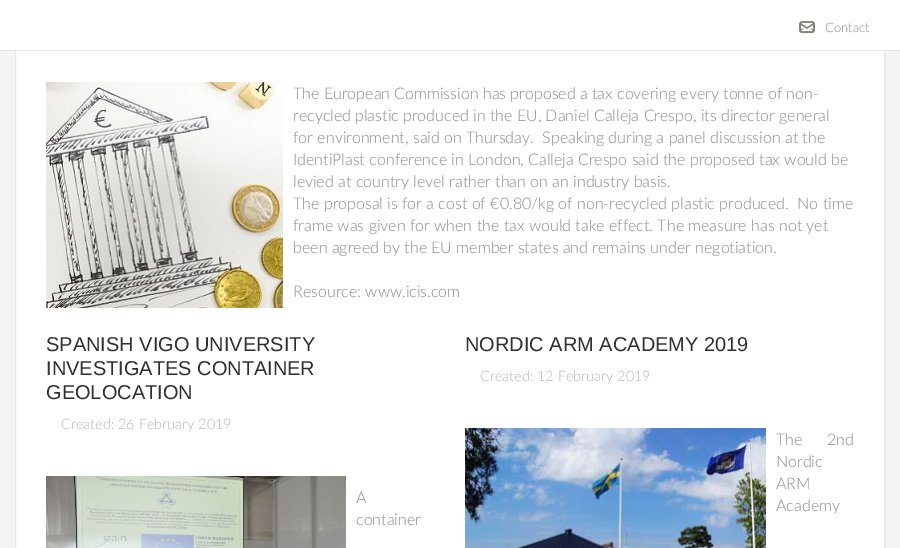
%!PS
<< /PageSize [900 548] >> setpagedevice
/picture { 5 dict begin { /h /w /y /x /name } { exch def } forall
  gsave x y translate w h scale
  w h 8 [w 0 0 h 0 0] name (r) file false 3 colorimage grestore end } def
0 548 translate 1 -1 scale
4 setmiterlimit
0.957 setgray
0 0 900 548 rectfill
1 setgray
16 51 868 497 rectfill
0.906 setgray
15.5 -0.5 869 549 rectstroke
1 setgray
0 0 900 50 rectfill
0.906 setgray
0 50 900 1 rectfill
(img1.rgb) 799 21 16 13 picture
/Lato-Light [13 0 0 -13 0 0] selectfont
0.537 setgray
825 32 moveto (Contact) show
(img2.rgb) 46 82 237 226 picture
/Lato-Light [16 0 0 -16 0 0] selectfont
293 99 moveto (The European Commission has proposed a tax covering every tonne of non-) show
293 121 moveto (recycled plastic produced in the EU, Daniel Calleja Crespo, its director general) show
293 143 moveto (for environment, said on Thursday.  Speaking during a panel discussion at the) show
293 165 moveto (IdentiPlast conference in London, Calleja Crespo said the proposed tax would be) show
293 187 moveto (levied at country level rather than on an industry basis.) show
293 209 moveto (The proposal is for a cost of €0.80/kg of non-recycled plastic produced.  No time) show
293 231 moveto (frame was given for when the tax would take effect. The measure has not yet) show
293 253 moveto (been agreed by the EU member states and remains under negotiation.) show
293 297 moveto (Resource: www.icis.com) show
/LiberationSans-Regular [20 0 0 -20 0 0] selectfont
0.184 setgray
46 351 moveto (SPANISH VIGO UNIVERSITY) show
46 375 moveto (INVESTIGATES CONTAINER) show
46 399 moveto (GEOLOCATION) show
/Lato-Light [14.4 0 0 -14.4 0 0] selectfont
0.718 setgray
61 429 moveto (Created: 26 February 2019) show
(img3.rgb) 46 476 300 72 picture
/Lato-Light [16 0 0 -16 0 0] selectfont
0.537 setgray
356 503 moveto (A) show
356 525 moveto (container) show
/LiberationSans-Regular [20 0 0 -20 0 0] selectfont
0.184 setgray
465 351 moveto (NORDIC ARM ACADEMY 2019) show
/Lato-Light [14.4 0 0 -14.4 0 0] selectfont
0.718 setgray
480 381 moveto (Created: 12 February 2019) show
(img4.rgb) 465 428 301 120 picture
/Lato-Light [16 0 0 -16 0 0] selectfont
0.537 setgray
776 445 moveto 20 0 32 (The 2nd) widthshow
776 467 moveto (Nordic) show
776 489 moveto (ARM) show
776 511 moveto (Academy) show
showpage
